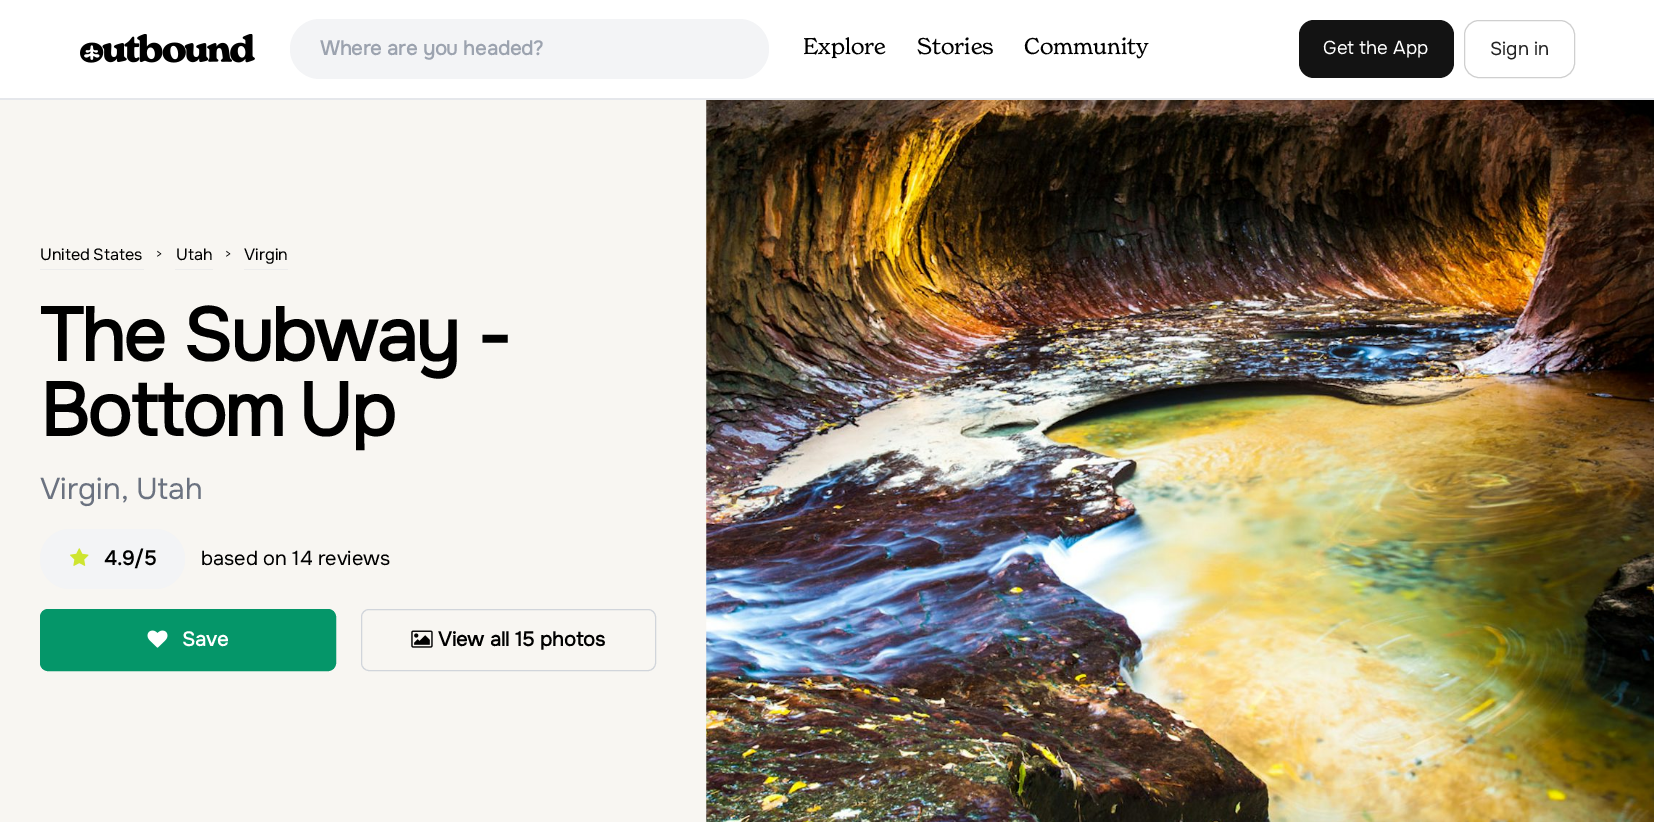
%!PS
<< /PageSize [1654 822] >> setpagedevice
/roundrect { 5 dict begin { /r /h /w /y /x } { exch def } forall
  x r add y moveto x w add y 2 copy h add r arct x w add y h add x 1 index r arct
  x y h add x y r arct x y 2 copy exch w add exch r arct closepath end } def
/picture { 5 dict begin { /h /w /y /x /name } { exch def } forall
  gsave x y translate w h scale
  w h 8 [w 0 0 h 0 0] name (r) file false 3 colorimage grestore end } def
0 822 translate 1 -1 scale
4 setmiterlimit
0.973 0.965 0.949 setrgbcolor
0 0 1654 822 rectfill
1 setgray
0 0 1654 98 rectfill
0.898 0.906 0.922 setrgbcolor
0 98 1654 2 rectfill
(img1.rgb) 80 34 175 29 picture
0.953 0.957 0.965 setrgbcolor
290 19 479 60 30 roundrect fill
/Onest-Bold [20 0 0 -20 0 0] selectfont
0.612 0.639 0.686 setrgbcolor
320 55 moveto (Where are you headed?) show
/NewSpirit-Regular [22.5 0 0 -22.5 0 0] selectfont
0 setgray
803 54 moveto (Explore) show
917 54 moveto (Stories) show
1024 54 moveto (Community) show
0.075 setgray
1299 20 155 58 15 roundrect fill
/Onest-Regular [18.75 0 0 -18.75 0 0] selectfont
1 setgray
1323 54 moveto (Get the App) show
0.812 setgray
1464.5 20.5 110 57 14.5 roundrect stroke
0.137 setgray
1490 55 moveto (Sign in) show
/Onest-Regular [16.25 0 0 -16.25 0 0] selectfont
0 setgray
40 260 moveto -1 0 32 (United States) widthshow
0.925 setgray
40 269 104 1 rectfill
/Onest-Regular [12 0 0 -12 0 0] selectfont
0 setgray
156 258 moveto (>) show
/Onest-Regular [16.25 0 0 -16.25 0 0] selectfont
176 260 moveto (Utah) show
0.925 setgray
175 269 38 1 rectfill
/Onest-Regular [12 0 0 -12 0 0] selectfont
0 setgray
225 258 moveto (>) show
/Onest-Regular [16.25 0 0 -16.25 0 0] selectfont
244 260 moveto (Virgin) show
0.925 setgray
244 269 44 1 rectfill
/Onest-Bold [75 0 0 -75 0 0] selectfont
0 setgray
40 361 moveto -1.9 0 (The Subway -) ashow
40 436 moveto -4 0 32 -1.9 0 (Bottom Up) awidthshow
/Onest-Regular [30 0 0 -30 0 0] selectfont
0.42 0.447 0.502 setrgbcolor
40 499 moveto -1 0 32 (Virgin, Utah) widthshow
0.953 0.957 0.965 setrgbcolor
40 529 145 60 30 roundrect fill
(img2.rgb) 70 548 19 18 picture
/Onest-Bold [20 0 0 -20 0 0] selectfont
0 setgray
104 565 moveto (4.9/5) show
/Onest-Regular [20 0 0 -20 0 0] selectfont
201 565 moveto (based on 14 reviews) show
0.02 0.588 0.412 setrgbcolor
40.5 609.5 295 61 7.5 roundrect gsave fill grestore
stroke
(img3.rgb) 147 630 21 18 picture
/Onest-Bold [20 0 0 -20 0 0] selectfont
1 setgray
182 646 moveto (Save) show
0.82 0.835 0.859 setrgbcolor
361.5 609.5 294 61 7.5 roundrect stroke
(img4.rgb) 411 630 22 18 picture
0 setgray
438 646 moveto (View all 15 photos) show
(img5.rgb) 706 100 948 722 picture
showpage
